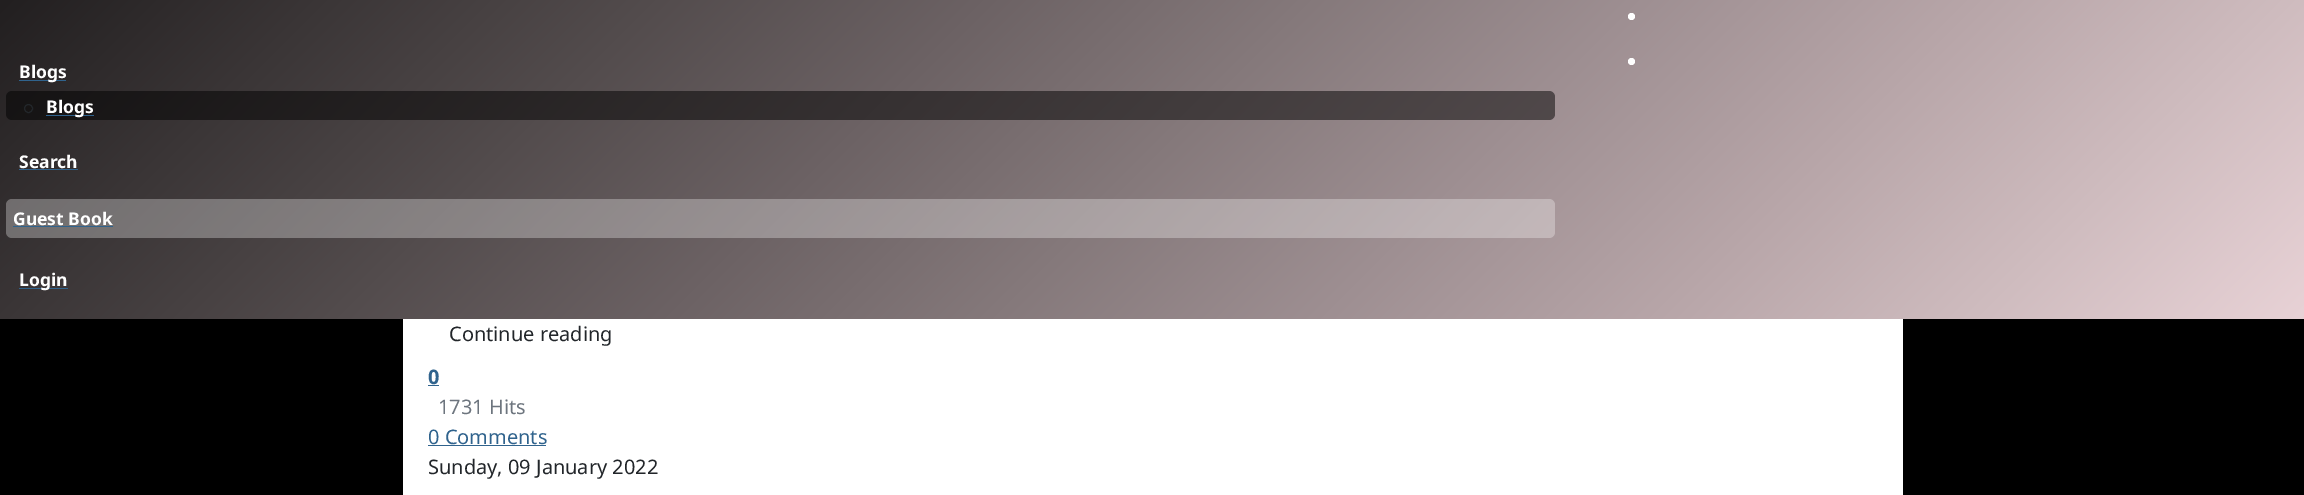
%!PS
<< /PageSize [2304 495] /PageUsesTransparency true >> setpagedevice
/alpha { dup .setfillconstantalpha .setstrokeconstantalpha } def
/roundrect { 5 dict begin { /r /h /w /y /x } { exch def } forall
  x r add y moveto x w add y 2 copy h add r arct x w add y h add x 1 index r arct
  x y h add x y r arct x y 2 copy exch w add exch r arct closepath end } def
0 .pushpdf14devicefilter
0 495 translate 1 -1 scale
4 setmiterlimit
0 setgray
0 0 2304 495 rectfill
gsave newpath 0 0 moveto 2304 0 lineto 2304 319 lineto 0 319 lineto closepath clip newpath
<< /ShadingType 2 /ColorSpace /DeviceRGB /Coords [497 -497 1808 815] /Extend [true true] /Function << /FunctionType 2 /Domain [0 1] /C0 [0.133 0.122 0.125] /C1 [0.91 0.824 0.839] /N 1 >> >> shfill grestore
1 setgray
newpath 1631.5 16.5 3.5 0 360 arc closepath fill
newpath 1631.5 61.5 3.5 0 360 arc closepath fill
0.188 0.388 0.553 setrgbcolor
19 80 47 1 rectfill
/NotoSans-Bold [17.5 0 0 -17.5 0 0] selectfont
1 setgray
19 78 moveto (Blogs) show
0.5 alpha
0 setgray
6 91 1549 29 6 roundrect fill
1 alpha
0.133 0.149 0.165 setrgbcolor
newpath 28.5 108.5 4 0 360 arc closepath stroke
0.188 0.388 0.553 setrgbcolor
46 115 48 1 rectfill
1 setgray
46 113 moveto (Blogs) show
19 168 moveto (Search) show
0.188 0.388 0.553 setrgbcolor
19 169 59 1 rectfill
0.3 alpha
1 setgray
6 199 1549 39 6 roundrect fill
1 alpha
13 225 moveto (Guest Book) show
0.188 0.388 0.553 setrgbcolor
13 226 100 1 rectfill
19 288 49 1 rectfill
1 setgray
19 286 moveto (Login) show
403 319 1500 176 rectfill
/NotoSans-Regular [20 0 0 -20 0 0] selectfont
0.133 0.149 0.165 setrgbcolor
449 341 moveto (Continue reading) show
/NotoSans-Bold [20 0 0 -20 0 0] selectfont
0.188 0.388 0.553 setrgbcolor
428 384 moveto (0) show
428 385 11 1 rectfill
/NotoSans-Regular [20 0 0 -20 0 0] selectfont
0.427 0.459 0.494 setrgbcolor
438 414 moveto (1731 Hits) show
0.188 0.388 0.553 setrgbcolor
428 444 moveto (0 Comments) show
428 445 118 1 rectfill
0.133 0.149 0.165 setrgbcolor
428 474 moveto (Sunday, 09 January 2022) show
.poppdf14devicefilter showpage
